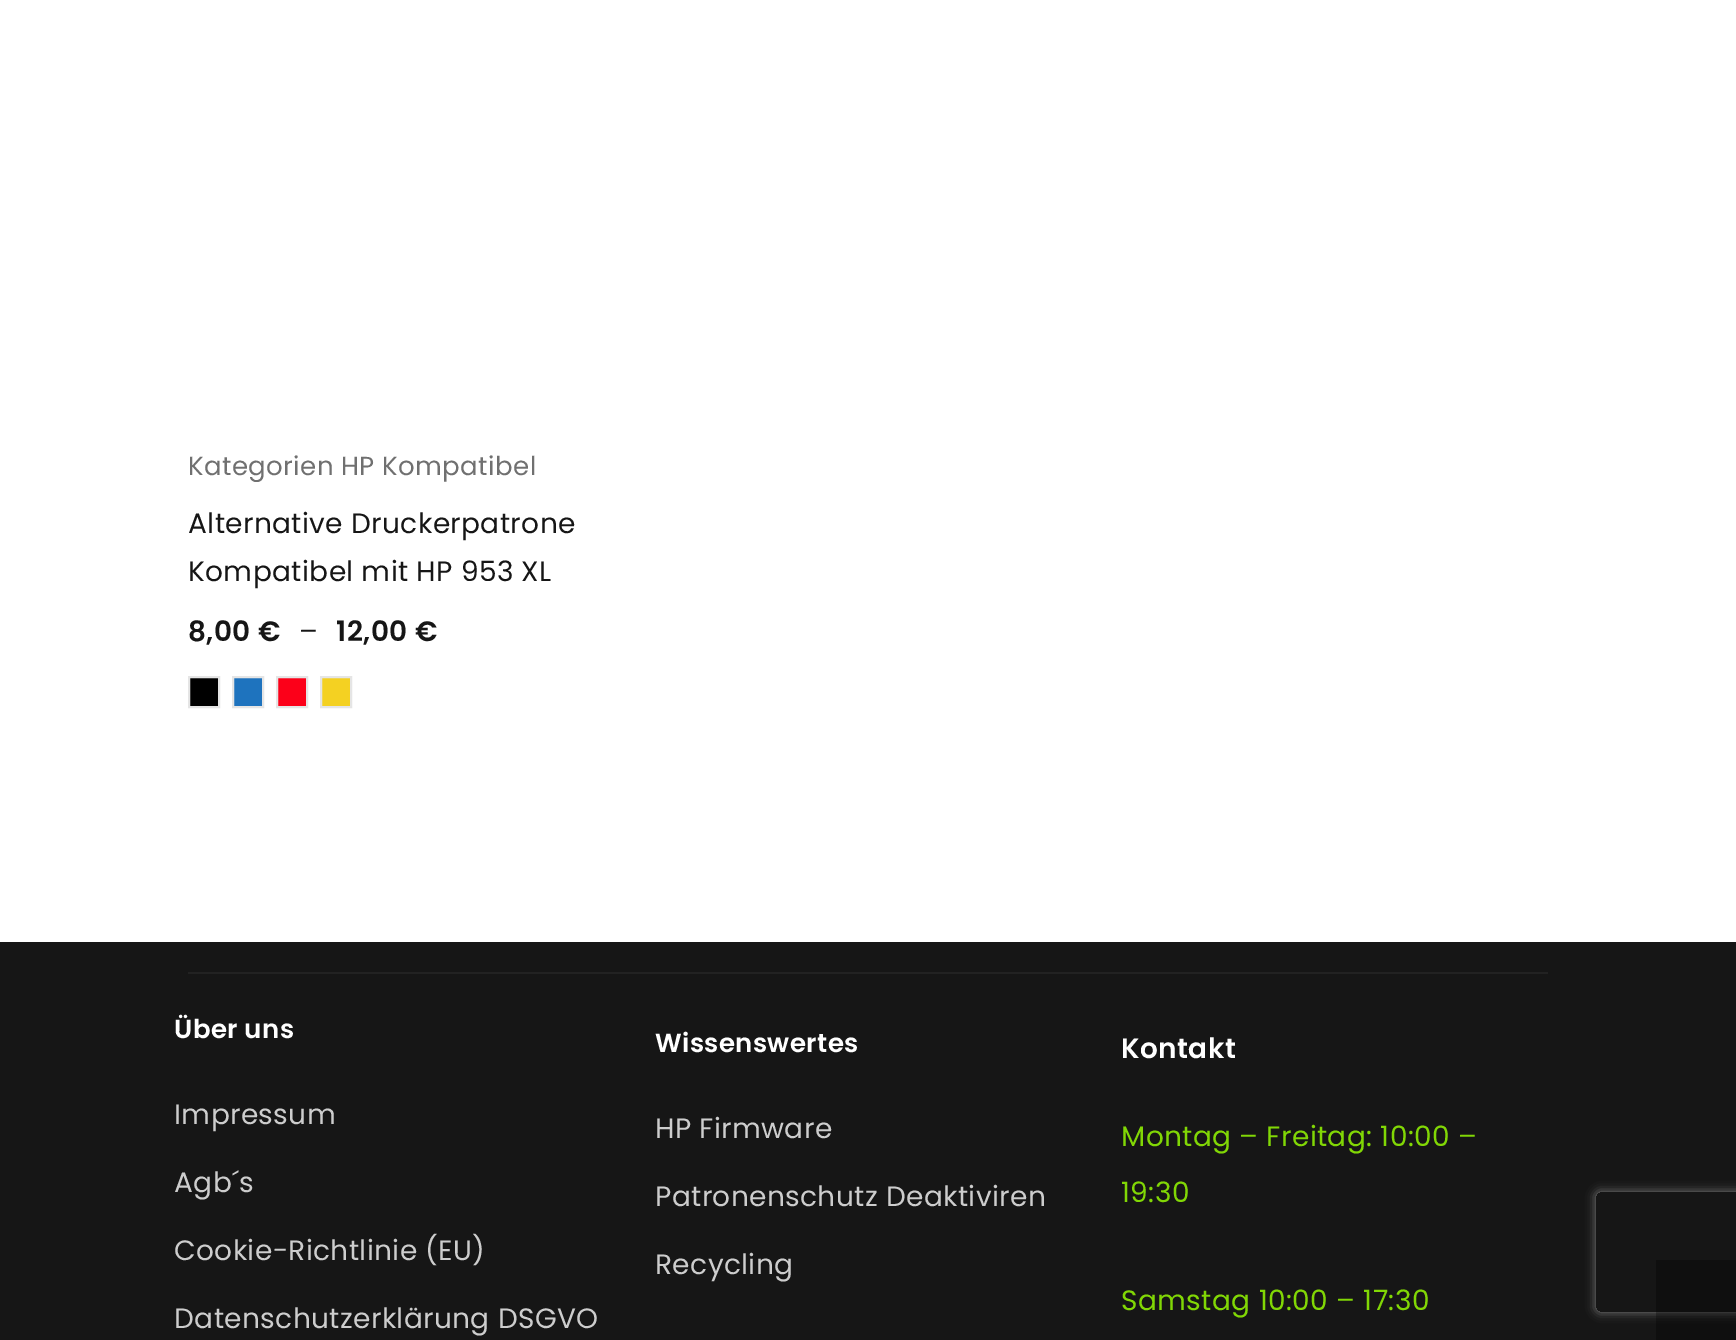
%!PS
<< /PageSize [1736 1340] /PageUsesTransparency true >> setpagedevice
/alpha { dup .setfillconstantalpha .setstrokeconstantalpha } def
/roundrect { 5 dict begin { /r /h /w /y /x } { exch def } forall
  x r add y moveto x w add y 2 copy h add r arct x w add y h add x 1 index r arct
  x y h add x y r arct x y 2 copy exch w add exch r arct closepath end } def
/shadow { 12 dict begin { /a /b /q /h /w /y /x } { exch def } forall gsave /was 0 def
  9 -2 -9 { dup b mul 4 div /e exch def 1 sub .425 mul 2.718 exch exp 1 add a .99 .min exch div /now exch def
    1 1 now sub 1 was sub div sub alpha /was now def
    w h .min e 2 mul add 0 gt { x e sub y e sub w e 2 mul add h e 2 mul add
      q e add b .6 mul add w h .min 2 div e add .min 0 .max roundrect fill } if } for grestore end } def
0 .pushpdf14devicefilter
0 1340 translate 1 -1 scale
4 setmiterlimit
1 setgray
0 0 1736 1340 rectfill
/Poppins-Regular [26 0 0 -26 0 0] selectfont
0.439 setgray
188 475 moveto 0.4 0 (Kategorien HP Kompatibel) ashow
/Poppins-Regular [28 0 0 -28 0 0] selectfont
0.086 setgray
188 533 moveto 0.4 0 (Alternative Druckerpatrone) ashow
188 581 moveto 0.4 0 (Kompatibel mit HP 953 XL) ashow
/Poppins-SemiBold [28 0 0 -28 0 0] selectfont
188 641 moveto 0.4 0 (8,00 €) ashow
/Poppins-Regular [28 0 0 -28 0 0] selectfont
299 641 moveto 0.4 0 (–) ashow
/Poppins-SemiBold [28 0 0 -28 0 0] selectfont
336 641 moveto 0.4 0 (12,00 €) ashow
0 setgray
newpath 189 677 moveto 219 677 lineto 219 707 lineto 189 707 lineto closepath gsave fill grestore
0.898 setgray
2 setlinewidth
stroke
0.118 0.451 0.745 setrgbcolor
newpath 233 677 moveto 263 677 lineto 263 707 lineto 233 707 lineto closepath gsave fill grestore
0.898 setgray
stroke
0.988 0 0.098 setrgbcolor
newpath 277 677 moveto 307 677 lineto 307 707 lineto 277 707 lineto closepath gsave fill grestore
0.898 setgray
stroke
0.957 0.82 0.133 setrgbcolor
newpath 321 677 moveto 351 677 lineto 351 707 lineto 321 707 lineto closepath gsave fill grestore
0.898 setgray
stroke
0.086 setgray
0 942 1736 398 rectfill
0.133 setgray
188 972 1360 2 rectfill
/Poppins-SemiBold [26 0 0 -26 0 0] selectfont
1 setgray
174 1038 moveto 0.4 0 (Über uns) ashow
/Poppins-Regular [28 0 0 -28 0 0] selectfont
0.804 setgray
174 1124 moveto 0.4 0 (Impressum) ashow
174 1192 moveto 0.4 0 (Agb´s) ashow
174 1260 moveto 0.4 0 (Cookie-Richtlinie \(EU\)) ashow
174 1328 moveto 0.4 0 (Datenschutzerklärung DSGVO) ashow
/Poppins-SemiBold [26 0 0 -26 0 0] selectfont
1 setgray
655 1052 moveto 0.4 0 (Wissenswertes) ashow
/Poppins-Regular [28 0 0 -28 0 0] selectfont
0.804 setgray
655 1138 moveto 0.4 0 (HP Firmware) ashow
655 1206 moveto 0.4 0 (Patronenschutz Deaktiviren) ashow
655 1274 moveto 0.4 0 (Recycling) ashow
/Poppins-SemiBold [28 0 0 -28 0 0] selectfont
1 setgray
1121 1058 moveto 0.4 0 (Kontakt) ashow
/Poppins-Regular [28 0 0 -28 0 0] selectfont
0.506 0.843 0.02 setrgbcolor
1121 1146 moveto 0.4 0 (Montag – Freitag: 10:00 –) ashow
1121 1202 moveto 0.4 0 (19:30) ashow
1121 1310 moveto 0.4 0 (Samstag 10:00 – 17:30) ashow
gsave
newpath 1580 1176 moveto 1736 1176 lineto 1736 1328 lineto 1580 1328 lineto closepath 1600 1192 moveto 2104 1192 lineto 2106 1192 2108 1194 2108 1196 curveto 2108 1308 lineto 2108 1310 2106 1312 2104 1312 curveto 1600 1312 lineto 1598 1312 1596 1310 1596 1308 curveto 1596 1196 lineto 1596 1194 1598 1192 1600 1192 curveto closepath eoclip newpath
0.502 setgray
1596 1192 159 120 4 5 1 shadow
grestore
0.3 alpha
0 setgray
1656 1260 80 80 rectfill
.poppdf14devicefilter showpage
